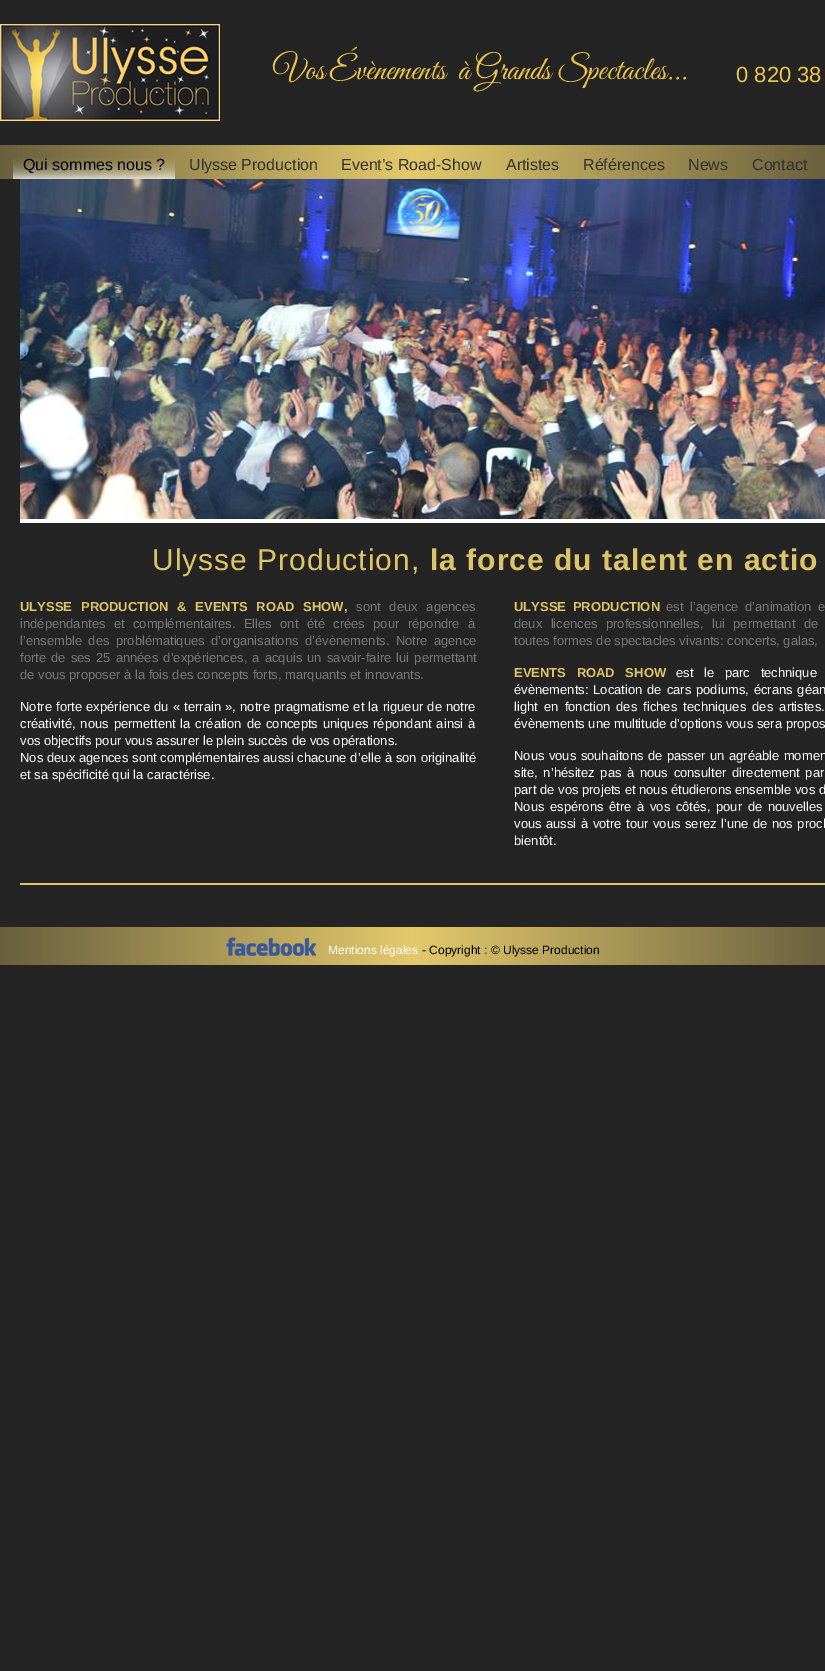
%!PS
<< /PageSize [825 1671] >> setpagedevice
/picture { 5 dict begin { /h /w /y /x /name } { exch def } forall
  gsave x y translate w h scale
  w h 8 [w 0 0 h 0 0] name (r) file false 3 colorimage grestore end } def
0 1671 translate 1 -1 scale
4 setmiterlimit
0.141 setgray
0 0 825 1671 rectfill
(img1.rgb) 0 24 220 97 picture
/GreatVibes-Regular [33 0 0 -33 0 0] selectfont
0.925 0.773 0.302 setrgbcolor
273 79 moveto -2 0 32 (Vos Évènements) widthshow
458 79 moveto (à Grands Spectacles...) show
/LiberationSans-Regular [22 0 0 -22 0 0] selectfont
736 82 moveto (0 820 38) show
(img2.rgb) 0 145 825 34 picture
(img3.rgb) 13 158 162 21 picture
/LiberationSans-Regular [16 0 0 -16 0 0] selectfont
0 setgray
23 170 moveto (Qui sommes nous ?) show
0.192 setgray
189 170 moveto (Ulysse Production) show
341 170 moveto (Event’s Road-Show) show
506 170 moveto (Artistes) show
583 170 moveto (Références) show
688 170 moveto (News) show
752 170 moveto (Contact) show
1 setgray
20 519 805 4 rectfill
(img4.rgb) 20 179 805 340 picture
/LiberationSans-Regular [30 0 0 -30 0 0] selectfont
0.867 0.769 0.412 setrgbcolor
152 570 moveto 1 0 (Ulysse Production,) ashow
/LiberationSans-Bold [30 0 0 -30 0 0] selectfont
430 570 moveto 1 0 (la force du talent en actio) ashow
/LiberationSans-Bold [13 0 0 -13 0 0] selectfont
20 611 moveto 5.25 0 32 (ULYSSE PRODUCTION & EVENTS ROAD SHOW,) widthshow
/LiberationSans-Regular [13 0 0 -13 0 0] selectfont
0.475 setgray
356 611 moveto 5.25 0 32 (sont deux agences) widthshow
20 628 moveto 4.75 0 32 (indépendantes et complémentaires. Elles ont été crées pour répondre à) widthshow
20 645 moveto 2.75 0 32 (l’ensemble des problématiques d’organisations d’évènements. Notre agence) widthshow
20 662 moveto 1.5 0 32 (forte de ses 25 années d’expériences, a acquis un savoir-faire lui permettant) widthshow
20 679 moveto (de vous proposer à la fois des concepts forts, marquants et innovants.) show
1 setgray
20 711 moveto 0.6 0 32 (Notre forte expérience du « terrain », notre pragmatisme et la rigueur de notre) widthshow
20 728 moveto 1.25 0 32 (créativité, nous permettent la création de concepts uniques répondant ainsi à) widthshow
20 745 moveto (vos objectifs pour vous assurer le plein succès de vos opérations.) show
20 762 moveto 0.25 0 32 (Nos deux agences sont complémentaires aussi chacune d’elle à son originalité) widthshow
20 779 moveto (et sa spécificité qui la caractérise.) show
/LiberationSans-Bold [13 0 0 -13 0 0] selectfont
0.867 0.769 0.412 setrgbcolor
514 611 moveto 3 0 32 (ULYSSE PRODUCTION) widthshow
/LiberationSans-Regular [13 0 0 -13 0 0] selectfont
0.475 setgray
666 611 moveto 3 0 32 (est l’agence d’animation e) widthshow
514 628 moveto 4.75 0 32 (deux licences professionnelles, lui permettant de) widthshow
514 645 moveto (toutes formes de spectacles vivants: concerts, galas,) show
/LiberationSans-Bold [13 0 0 -13 0 0] selectfont
0.867 0.769 0.412 setrgbcolor
514 677 moveto 7 0 32 (EVENTS ROAD SHOW) widthshow
/LiberationSans-Regular [13 0 0 -13 0 0] selectfont
1 setgray
676 677 moveto 7 0 32 (est le parc technique) widthshow
514 694 moveto 1.25 0 32 (évènements: Location de cars podiums, écrans géan) widthshow
514 711 moveto 2.5 0 32 (light en fonction des fiches techniques des artistes.) widthshow
514 728 moveto (évènements une multitude d’options vous sera propos) show
514 760 moveto 0.75 0 32 (Nous vous souhaitons de passer un agréable momen) widthshow
514 777 moveto 2 0 32 (site, n’hésitez pas à nous consulter directement par) widthshow
514 794 moveto (part de vos projets et nous étudierons ensemble vos d) show
514 811 moveto 2 0 32 (Nous espérons être à vos côtés, pour de nouvelles) widthshow
514 828 moveto 0.9 0 32 (vous aussi à votre tour vous serez l’une de nos proch) widthshow
514 845 moveto (bientôt.) show
0.867 0.769 0.412 setrgbcolor
20 883 805 2 rectfill
(img5.rgb) 0 927 825 38 picture
(img6.rgb) 226 937 90 20 picture
/LiberationSans-Regular [12 0 0 -12 0 0] selectfont
1 setgray
328 954 moveto (Mentions légales) show
0 setgray
422 954 moveto (- Copyright : © Ulysse Production) show
showpage
